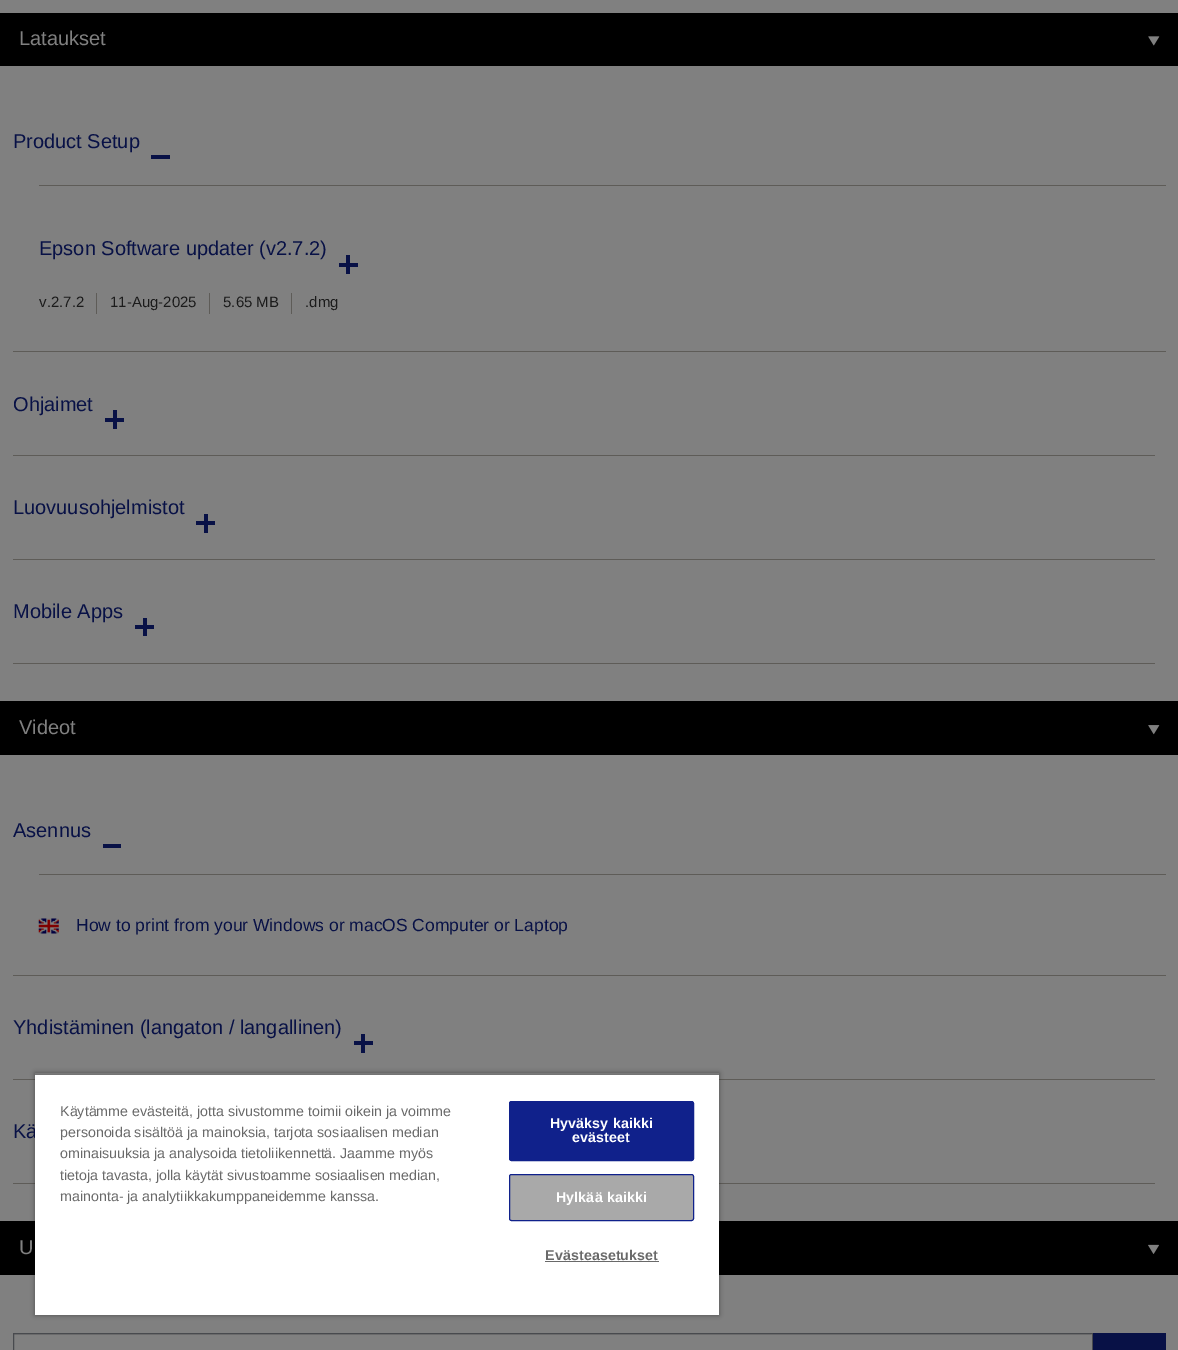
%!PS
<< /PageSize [1178 1350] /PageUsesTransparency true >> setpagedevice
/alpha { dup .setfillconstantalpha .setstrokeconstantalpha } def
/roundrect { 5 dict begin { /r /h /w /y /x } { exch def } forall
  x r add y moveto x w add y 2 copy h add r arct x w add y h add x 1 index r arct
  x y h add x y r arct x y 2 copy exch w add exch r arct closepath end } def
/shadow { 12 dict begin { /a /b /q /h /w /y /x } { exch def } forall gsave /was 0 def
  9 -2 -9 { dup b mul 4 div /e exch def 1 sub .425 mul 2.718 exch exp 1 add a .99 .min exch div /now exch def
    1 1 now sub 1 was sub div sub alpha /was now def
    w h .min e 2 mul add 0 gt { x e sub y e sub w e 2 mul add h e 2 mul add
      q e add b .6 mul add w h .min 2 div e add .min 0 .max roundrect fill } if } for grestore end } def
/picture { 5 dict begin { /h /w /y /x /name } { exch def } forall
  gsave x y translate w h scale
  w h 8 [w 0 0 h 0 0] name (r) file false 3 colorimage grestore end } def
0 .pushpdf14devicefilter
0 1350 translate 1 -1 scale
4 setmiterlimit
0.502 setgray
0 0 1178 1350 rectfill
0 setgray
0 13 1178 53 rectfill
/LiberationSans-Regular [20 0 0 -20 0 0] selectfont
0.502 setgray
19 45 moveto (Lataukset) show
(img1.rgb) 1148 36 12 10 picture
0.369 0.361 0.345 setrgbcolor
13 351 1153 1 rectfill
0.031 0.067 0.275 setrgbcolor
13 148 moveto (Product Setup) show
151 155 19 4 rectfill
0.369 0.361 0.345 setrgbcolor
39 185 1127 1 rectfill
0.031 0.067 0.275 setrgbcolor
39 255 moveto (Epson Software updater \(v2.7.2\)) show
346 255 4 19 rectfill
339 263 19 4 rectfill
0.369 0.361 0.345 setrgbcolor
96 293 1 21 rectfill
/LiberationSans-Regular [15 0 0 -15 0 0] selectfont
0.106 setgray
39 307 moveto (v.2.7.2) show
0.369 0.361 0.345 setrgbcolor
209 293 1 21 rectfill
0.106 setgray
110 307 moveto (11-Aug-2025) show
0.369 0.361 0.345 setrgbcolor
291 293 1 21 rectfill
0.106 setgray
223 307 moveto (5.65 MB) show
305 307 moveto (.dmg) show
0.369 0.361 0.345 setrgbcolor
13 455 1142 1 rectfill
/LiberationSans-Regular [20 0 0 -20 0 0] selectfont
0.031 0.067 0.275 setrgbcolor
13 411 moveto (Ohjaimet) show
113 410 4 19 rectfill
105 418 19 4 rectfill
0.369 0.361 0.345 setrgbcolor
13 559 1142 1 rectfill
0.031 0.067 0.275 setrgbcolor
13 514 moveto (Luovuusohjelmistot) show
204 514 4 19 rectfill
196 521 19 4 rectfill
0.369 0.361 0.345 setrgbcolor
13 663 1142 1 rectfill
0.031 0.067 0.275 setrgbcolor
13 618 moveto (Mobile Apps) show
143 618 4 18 rectfill
135 625 19 4 rectfill
0 setgray
0 701 1178 54 rectfill
0.502 setgray
19 734 moveto (Videot) show
(img2.rgb) 1148 725 12 10 picture
0.369 0.361 0.345 setrgbcolor
13 975 1153 1 rectfill
0.031 0.067 0.275 setrgbcolor
13 837 moveto (Asennus) show
103 844 18 4 rectfill
0.369 0.361 0.345 setrgbcolor
39 874 1127 1 rectfill
(img3.rgb) 38 918 21 16 picture
/LiberationSans-Regular [17.5 0 0 -17.5 0 0] selectfont
0.031 0.067 0.275 setrgbcolor
76 931 moveto (How to print from your Windows or macOS Computer or Laptop) show
0.369 0.361 0.345 setrgbcolor
13 1079 1142 1 rectfill
/LiberationSans-Regular [20 0 0 -20 0 0] selectfont
0.031 0.067 0.275 setrgbcolor
13 1034 moveto (Yhdistäminen \(langaton / langallinen\)) show
361 1034 4 19 rectfill
354 1041 19 4 rectfill
0.369 0.361 0.345 setrgbcolor
13 1183 1142 1 rectfill
0.031 0.067 0.275 setrgbcolor
13 1138 moveto (Kä) show
0 setgray
0 1221 1178 54 rectfill
0.502 setgray
19 1254 moveto (U) show
(img4.rgb) 1148 1244 11 10 picture
0.463 setgray
14 1334 1077 1 rectfill
0.282 0.29 0.306 setrgbcolor
13.5 1333.5 1079 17 rectstroke
0.031 0.067 0.275 setrgbcolor
1093 1333 73 17 rectfill
gsave
newpath 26 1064 moveto 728 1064 lineto 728 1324 lineto 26 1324 lineto closepath 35 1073 moveto 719 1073 lineto 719 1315 lineto 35 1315 lineto closepath eoclip newpath
0 setgray
35 1073 684 242 0 2.5 0.35 shadow
grestore
gsave
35 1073 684 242 rectclip
0 setgray
35 1075 684 240 0 2.5 0.2 shadow
grestore
1 setgray
35 1075 684 240 rectfill
/LiberationSans-Regular [14.25 0 0 -14.25 0 0] selectfont
0.412 setgray
60 1116 moveto (Käytämme evästeitä, jotta sivustomme toimii oikein ja voimme) show
60 1137 moveto (personoida sisältöä ja mainoksia, tarjota sosiaalisen median) show
60 1158 moveto (ominaisuuksia ja analysoida tietoliikennettä. Jaamme myös) show
60 1180 moveto (tietoja tavasta, jolla käytät sivustoamme sosiaalisen median,) show
60 1201 moveto (mainonta- ja analytiikkakumppaneidemme kanssa.) show
0.063 0.129 0.545 setrgbcolor
509.5 1101.5 184 59 2 roundrect gsave fill grestore
stroke
/LiberationSans-Bold [14.25 0 0 -14.25 0 0] selectfont
1 setgray
550 1128 moveto 0.1 0 (Hyväksy kaikki) ashow
572 1142 moveto 0.1 0 (evästeet) ashow
0.663 setgray
509.5 1174.5 184 46 2 roundrect gsave fill grestore
0.063 0.129 0.545 setrgbcolor
stroke
1 setgray
556 1202 moveto 0.1 0 (Hylkää kaikki) ashow
0.412 setgray
545 1260 moveto 0.1 0 (Evästeasetukset) ashow
545 1261 114 1 rectfill
.poppdf14devicefilter showpage
